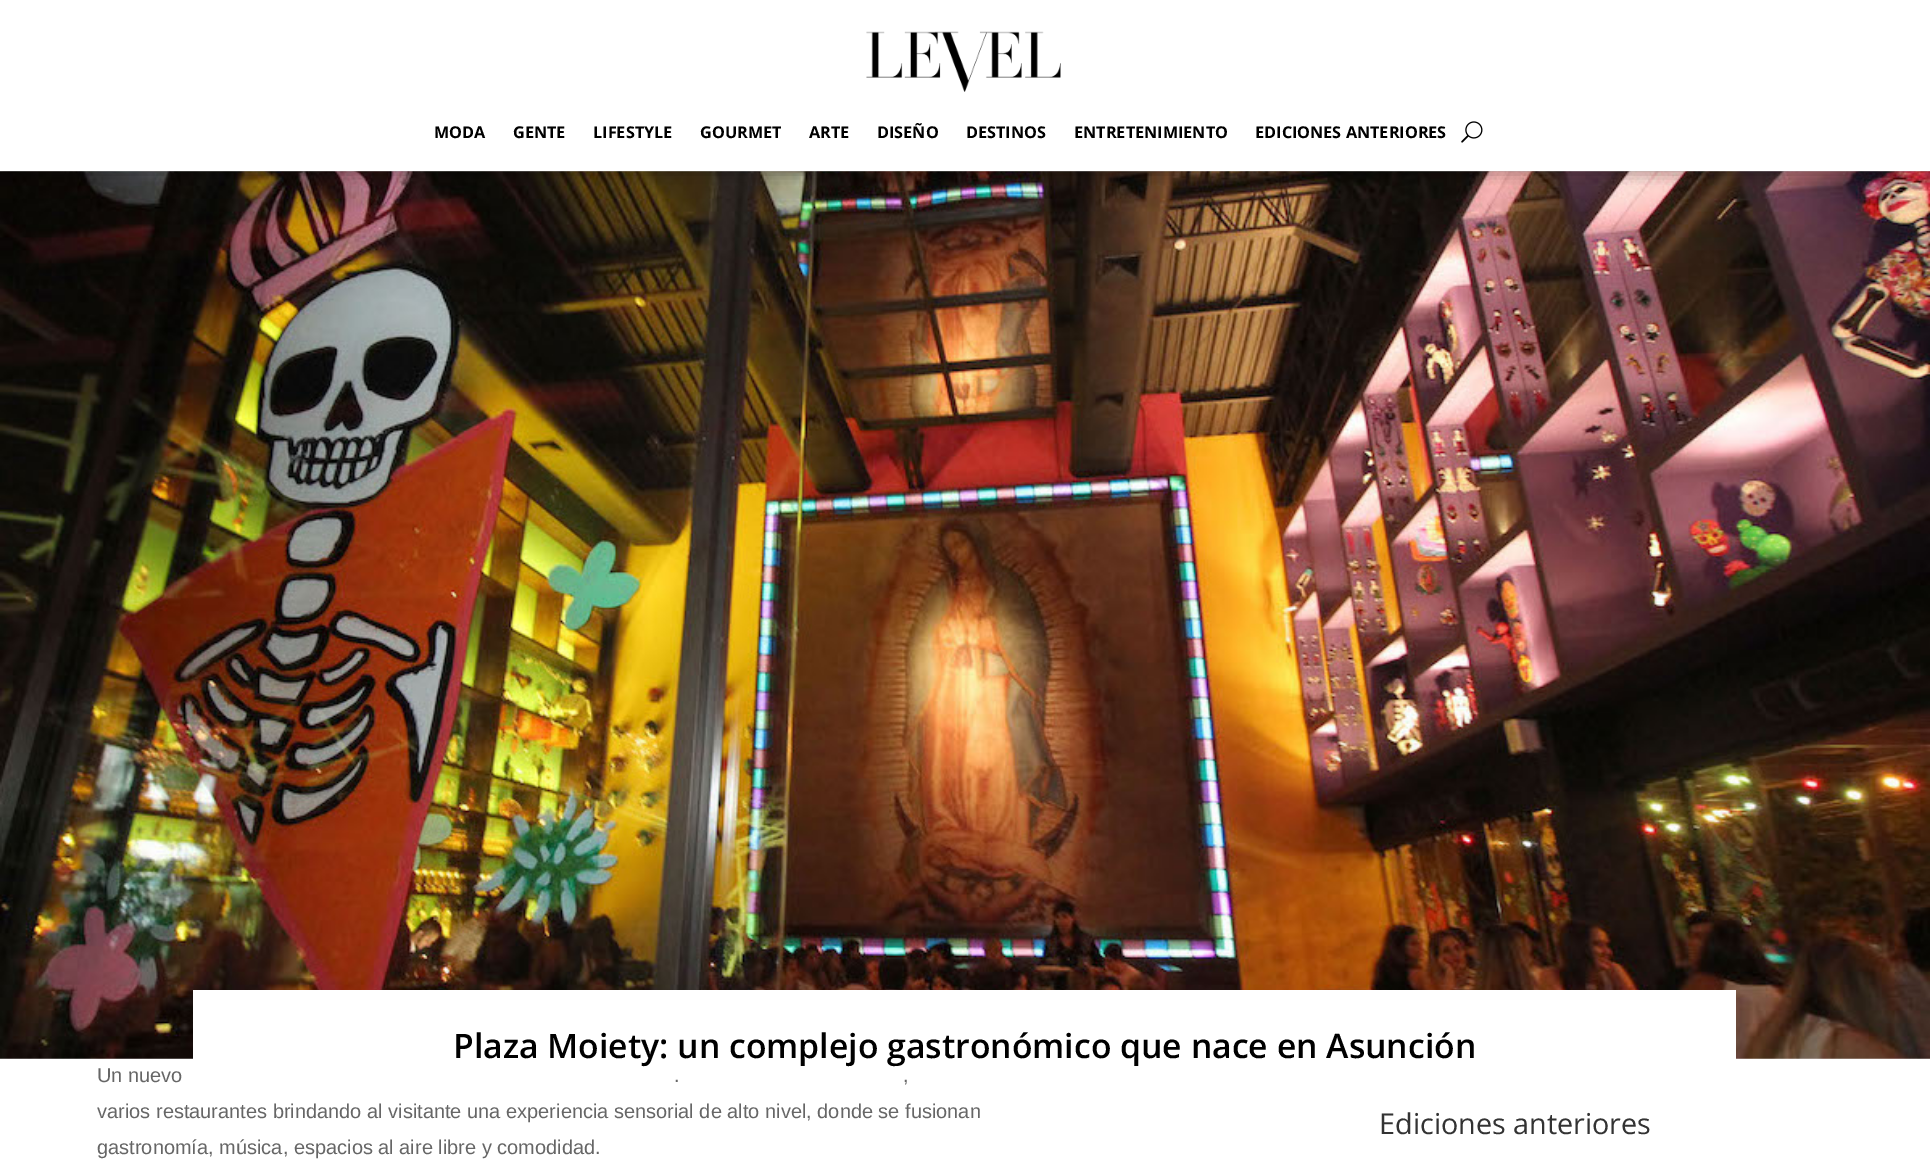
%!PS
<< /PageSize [1930 1167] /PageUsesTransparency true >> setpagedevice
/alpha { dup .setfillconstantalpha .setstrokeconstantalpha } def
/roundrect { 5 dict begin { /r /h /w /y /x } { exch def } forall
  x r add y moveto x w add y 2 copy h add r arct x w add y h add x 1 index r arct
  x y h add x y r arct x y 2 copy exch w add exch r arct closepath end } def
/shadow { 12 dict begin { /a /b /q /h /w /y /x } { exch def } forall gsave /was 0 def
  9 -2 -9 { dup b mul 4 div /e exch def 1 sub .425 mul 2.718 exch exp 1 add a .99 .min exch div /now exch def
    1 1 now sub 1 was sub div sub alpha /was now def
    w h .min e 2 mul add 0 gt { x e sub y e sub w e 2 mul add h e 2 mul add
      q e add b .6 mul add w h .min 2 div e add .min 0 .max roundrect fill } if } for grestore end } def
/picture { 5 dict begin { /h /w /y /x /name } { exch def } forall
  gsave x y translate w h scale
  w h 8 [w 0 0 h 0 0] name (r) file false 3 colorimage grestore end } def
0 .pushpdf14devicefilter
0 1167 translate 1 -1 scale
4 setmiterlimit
1 setgray
0 0 1930 1167 rectfill
(img3.rgb) 0 171 1930 888 picture
gsave
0 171 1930 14 rectclip
0 setgray
0 3 1930 171 0 7.5 0.3 shadow
grestore
(img1.rgb) 866 31 195 61 picture
/OpenSans-Bold [16.25 0 0 -16.25 0 0] selectfont
0 setgray
434 138 moveto (MODA) show
513 138 moveto (GENTE) show
593 138 moveto (LIFESTYLE) show
700 138 moveto (GOURMET) show
809 138 moveto (ARTE) show
877 138 moveto (DISEÑO) show
966 138 moveto (DESTINOS) show
1074 138 moveto (ENTRETENIMIENTO) show
1255 138 moveto (EDICIONES ANTERIORES) show
(img2.rgb) 1461 121 22 22 picture
1 setgray
193 990 1543 69 rectfill
/OpenSans-SemiBold [33.75 0 0 -33.75 0 0] selectfont
0 setgray
453 1058 moveto (Plaza Moiety: un complejo gastronómico que nace en Asunción) show
/LiberationSans-Regular [20 0 0 -20 0 0] selectfont
0.4 setgray
97 1082 moveto (Un nuevo) show
674 1082 moveto (.) show
903 1082 moveto (,) show
97 1118 moveto (varios restaurantes brindando al visitante una experiencia sensorial de alto nivel, donde se fusionan) show
97 1154 moveto (gastronomía, música, espacios al aire libre y comodidad.) show
/OpenSans-Regular [28.75 0 0 -28.75 0 0] selectfont
0.2 setgray
1379 1134 moveto (Ediciones anteriores) show
.poppdf14devicefilter showpage
